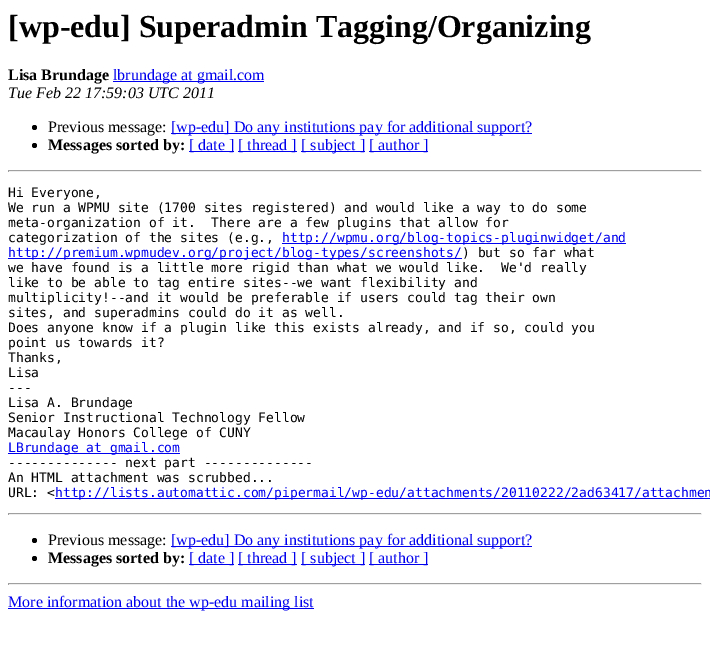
%!PS
<< /PageSize [710 662] >> setpagedevice
0 662 translate 1 -1 scale
4 setmiterlimit
1 setgray
0 0 710 662 rectfill
/LiberationSerif-Bold [32 0 0 -32 0 0] selectfont
0 setgray
8 37 moveto ([wp-edu] Superadmin Tagging/Organizing) show
/LiberationSerif-Bold [16 0 0 -16 0 0] selectfont
8 80 moveto (Lisa Brundage) show
0 0 0.933 setrgbcolor
113 81 151 1 rectfill
/LiberationSerif-Regular [16 0 0 -16 0 0] selectfont
113 80 moveto (lbrundage at gmail.com) show
/LiberationSerif-Italic [16 0 0 -16 0 0] selectfont
0 setgray
8 98 moveto (Tue Feb 22 17:59:03 UTC 2011) show
newpath 34.5 127.5 2.5 0 360 arc closepath fill
/LiberationSerif-Regular [16 0 0 -16 0 0] selectfont
48 132 moveto (Previous message:) show
0 0 0.933 setrgbcolor
171 133 361 1 rectfill
171 132 moveto ([wp-edu] Do any institutions pay for additional support?) show
0 setgray
newpath 34.5 145.5 2.5 0 360 arc closepath fill
/LiberationSerif-Bold [16 0 0 -16 0 0] selectfont
48 150 moveto (Messages sorted by:) show
0 0 0.933 setrgbcolor
189 151 45 1 rectfill
/LiberationSerif-Regular [16 0 0 -16 0 0] selectfont
189 150 moveto ([ date ]) show
238 151 59 1 rectfill
238 150 moveto ([ thread ]) show
301 151 64 1 rectfill
301 150 moveto ([ subject ]) show
369 151 59 1 rectfill
369 150 moveto ([ author ]) show
0.624 setgray
8 170 694 1 rectfill
0.933 setgray
701 170 1 2 rectfill
8 171 694 1 rectfill
0.624 setgray
8 170 1 2 rectfill
/DejaVuSansMono-Regular [13 0 0 -13 0 0] selectfont
0 setgray
8 197 moveto (Hi Everyone,) show
8 212 moveto (We run a WPMU site \(1700 sites registered\) and would like a way to do some) show
8 227 moveto (meta-organization of it.  There are a few plugins that allow for) show
8 242 moveto (categorization of the sites \(e.g.,) show
0 0 0.933 setrgbcolor
282 243 344 1 rectfill
282 242 moveto (http://wpmu.org/blog-topics-pluginwidget/and) show
8 258 454 1 rectfill
8 257 moveto (http://premium.wpmudev.org/project/blog-types/screenshots/) show
0 setgray
462 257 moveto (\) but so far what) show
8 272 moveto (we have found is a little more rigid than what we would like.  We'd really) show
8 287 moveto (like to be able to tag entire sites--we want flexibility and) show
8 302 moveto (multiplicity!--and it would be preferable if users could tag their own) show
8 317 moveto (sites, and superadmins could do it as well.) show
8 332 moveto (Does anyone know if a plugin like this exists already, and if so, could you) show
8 347 moveto (point us towards it?) show
8 362 moveto (Thanks,) show
8 377 moveto (Lisa) show
8 392 moveto (---) show
8 407 moveto (Lisa A. Brundage) show
8 422 moveto (Senior Instructional Technology Fellow) show
8 437 moveto (Macaulay Honors College of CUNY) show
0 0 0.933 setrgbcolor
8 453 172 1 rectfill
8 452 moveto (LBrundage at gmail.com) show
0 setgray
8 467 moveto (-------------- next part --------------) show
8 482 moveto (An HTML attachment was scrubbed...) show
8 497 moveto (URL: <) show
0 0 0.933 setrgbcolor
55 498 655 1 rectfill
55 497 moveto (http://lists.automattic.com/pipermail/wp-edu/attachments/20110222/2ad63417/attachmen) show
0.624 setgray
8 513 694 1 rectfill
0.933 setgray
701 513 1 2 rectfill
8 514 694 1 rectfill
0.624 setgray
8 513 1 2 rectfill
0 setgray
newpath 34.5 540.5 2.5 0 360 arc closepath fill
/LiberationSerif-Regular [16 0 0 -16 0 0] selectfont
48 545 moveto (Previous message:) show
0 0 0.933 setrgbcolor
171 546 361 1 rectfill
171 545 moveto ([wp-edu] Do any institutions pay for additional support?) show
0 setgray
newpath 34.5 558.5 2.5 0 360 arc closepath fill
/LiberationSerif-Bold [16 0 0 -16 0 0] selectfont
48 563 moveto (Messages sorted by:) show
0 0 0.933 setrgbcolor
189 564 45 1 rectfill
/LiberationSerif-Regular [16 0 0 -16 0 0] selectfont
189 563 moveto ([ date ]) show
238 564 59 1 rectfill
238 563 moveto ([ thread ]) show
301 564 64 1 rectfill
301 563 moveto ([ subject ]) show
369 564 59 1 rectfill
369 563 moveto ([ author ]) show
0.624 setgray
8 583 694 1 rectfill
0.933 setgray
701 583 1 2 rectfill
8 584 694 1 rectfill
0.624 setgray
8 583 1 2 rectfill
0 0 0.933 setrgbcolor
8 608 306 1 rectfill
8 607 moveto (More information about the wp-edu mailing list) show
showpage
